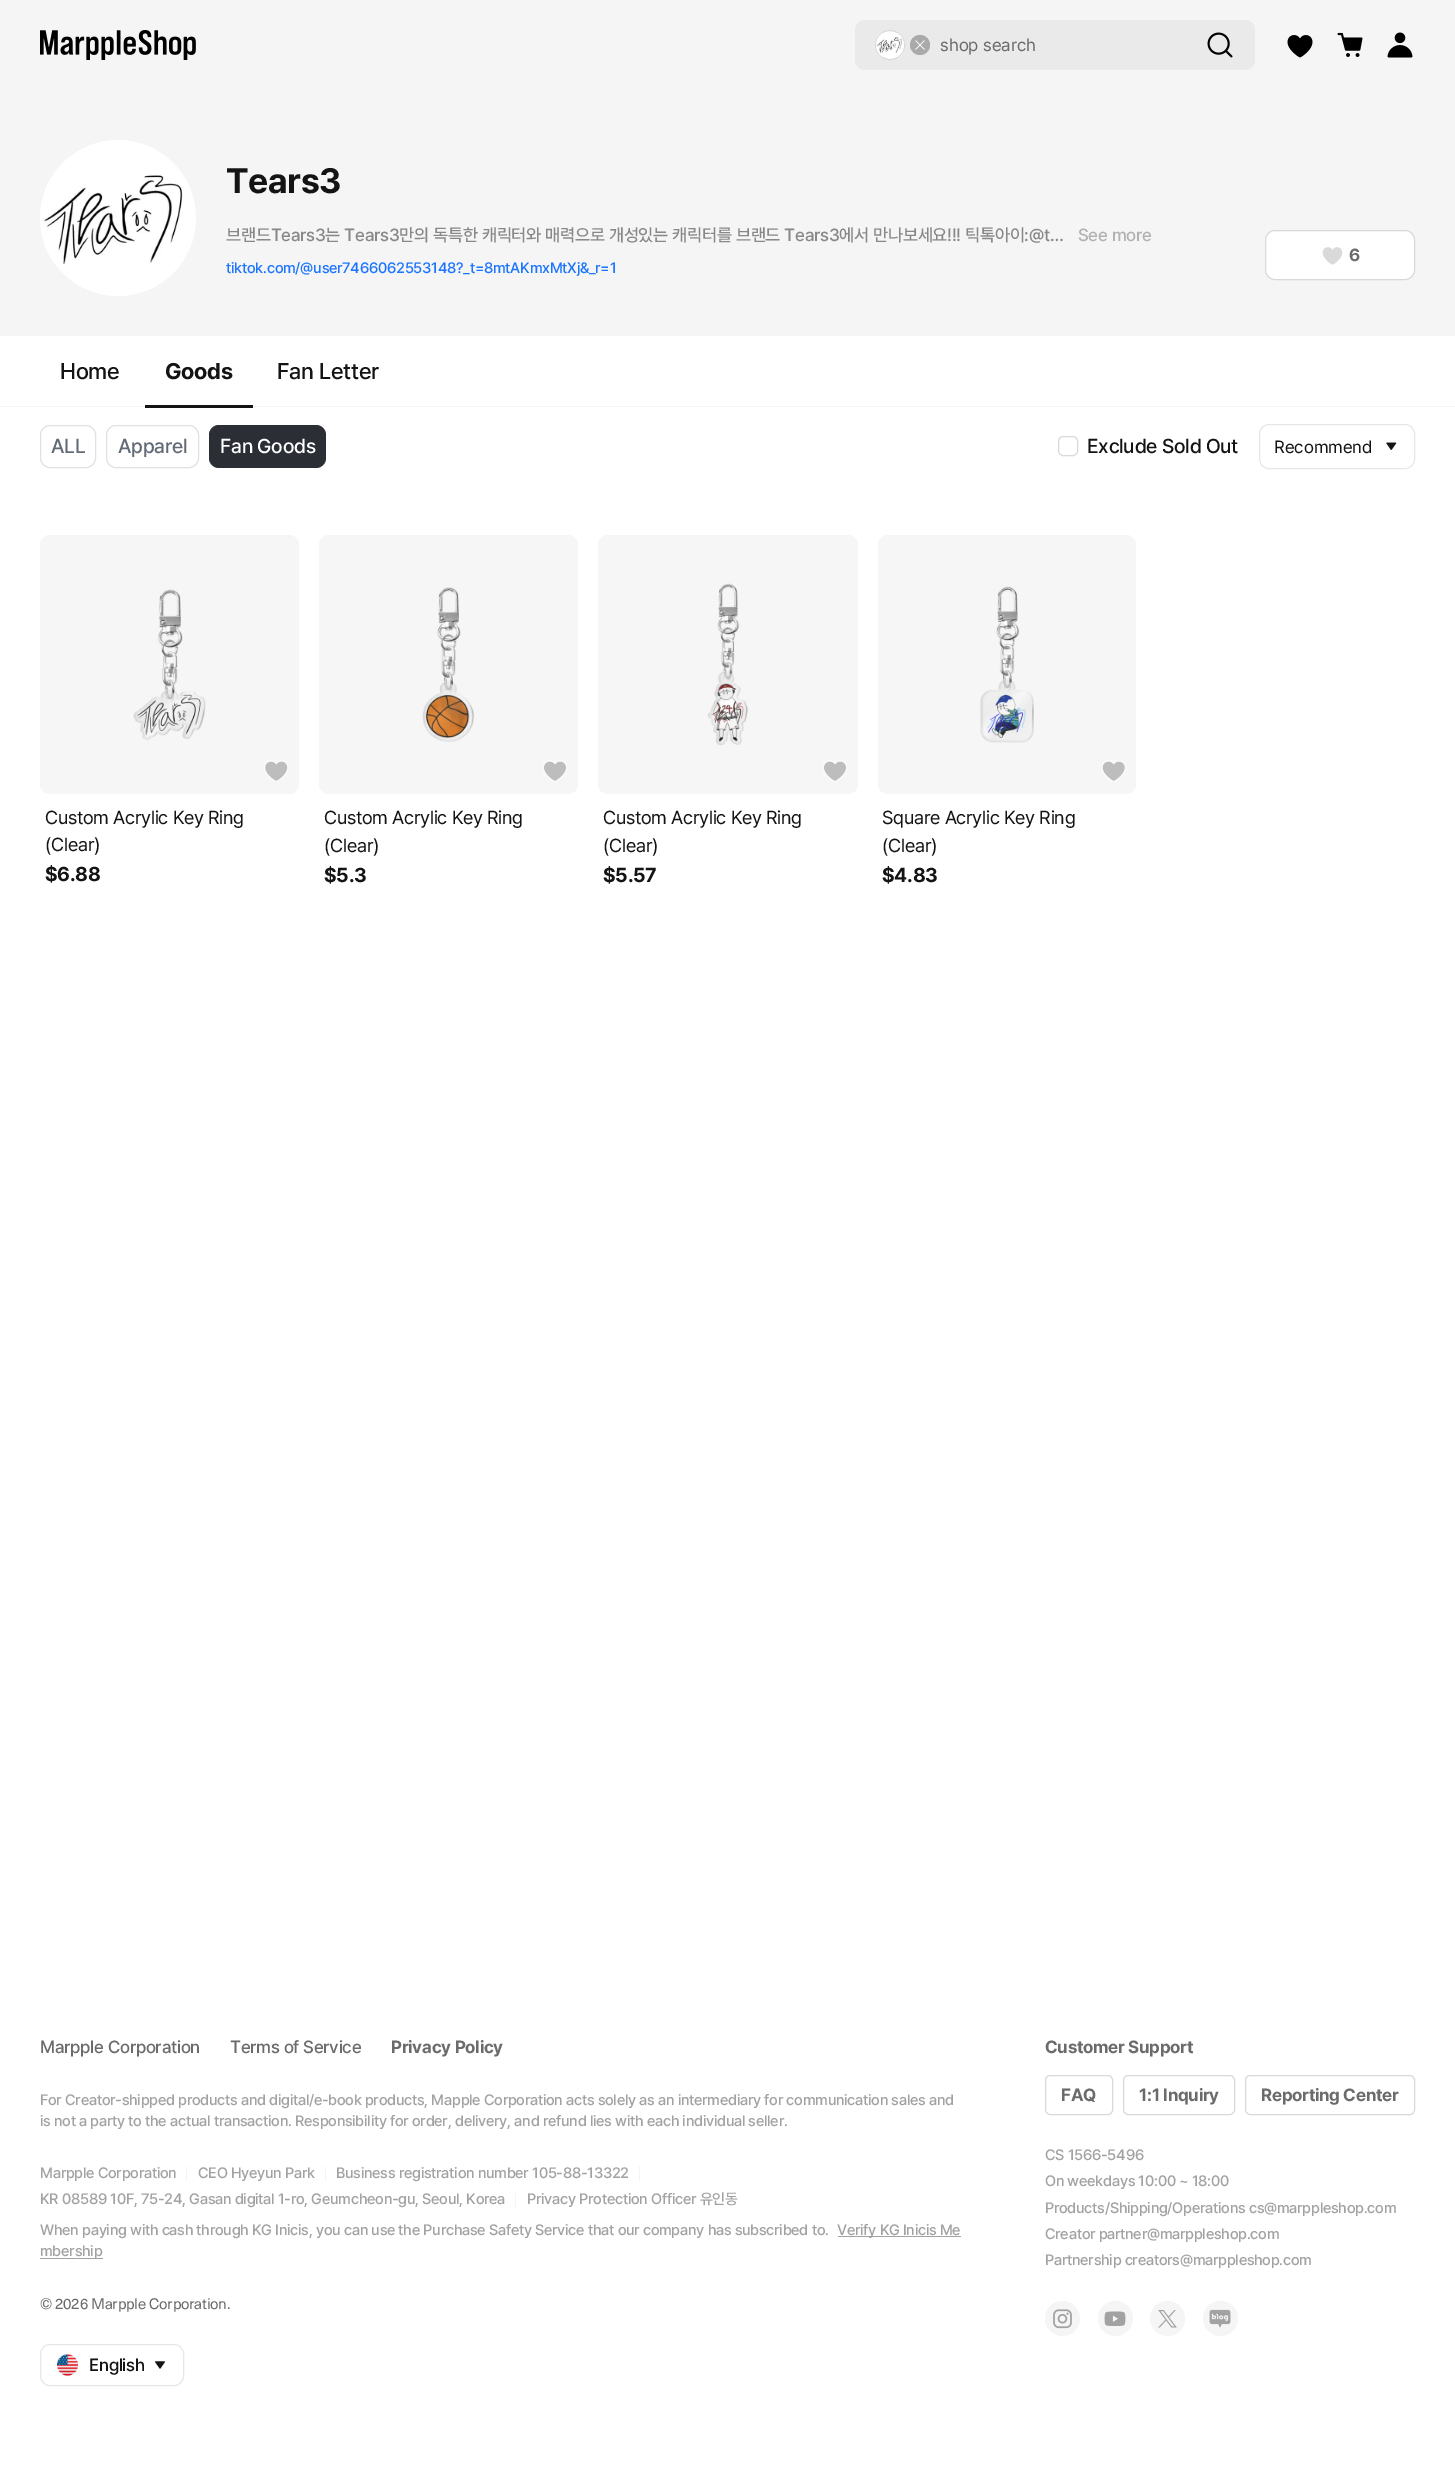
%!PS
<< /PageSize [1455 2476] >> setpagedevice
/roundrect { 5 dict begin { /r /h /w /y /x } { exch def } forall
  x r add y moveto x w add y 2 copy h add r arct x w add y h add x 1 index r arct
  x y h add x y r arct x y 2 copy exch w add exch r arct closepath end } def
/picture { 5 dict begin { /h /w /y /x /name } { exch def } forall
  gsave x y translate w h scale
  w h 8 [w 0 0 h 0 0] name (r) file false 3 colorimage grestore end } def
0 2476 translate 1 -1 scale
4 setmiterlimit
1 setgray
0 0 1455 2476 rectfill
0.961 setgray
0 0 1455 336 rectfill
(img1.rgb) 40 30 156 30 picture
0.918 setgray
855 20 400 50 10 roundrect fill
1 setgray
newpath 890 45 14.5 0 360 arc closepath gsave fill grestore
0.851 setgray
stroke
(img2.rgb) 876 33 28 24 picture
0.667 setgray
newpath 920 45 10 0 360 arc closepath fill
(img3.rgb) 915 40 10 10 picture
/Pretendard-Regular [17.5 0 0 -17.5 0 0] selectfont
0.42 setgray
940 51 moveto (shop search) show
(img4.rgb) 1207 32 26 26 picture
(img5.rgb) 1287 35 26 23 picture
(img6.rgb) 1337 32 26 25 picture
(img7.rgb) 1387 32 26 26 picture
1 setgray
newpath 118 218 78 0 360 arc closepath fill
(img8.rgb) 43 174 140 90 picture
/Pretendard-Bold [35 0 0 -35 0 0] selectfont
0.078 setgray
226 193 moveto -0.25 0 (Tears3) ashow
/Pretendard-Medium [17.5 0 0 -17.5 0 0] selectfont
0.533 setgray
226 241 moveto -0.25 0 (브랜드Tears3는 Tears3만의 독특한 캐릭터와 매력으로 개성있는 캐릭터를 브랜드 Tears3에서 만나보세요!!! 틱톡아이:@t…) ashow
0.698 setgray
1078 241 moveto -0.25 0 (See more) ashow
/Pretendard-Medium [15 0 0 -15 0 0] selectfont
0.11 0.459 1 setrgbcolor
226 273 moveto -0.25 0 (tiktok.com/@user7466062553148?_t=8mtAKmxMtXj&_r=1) ashow
1 setgray
1265.5 230.5 149 49 9.5 roundrect gsave fill grestore
0.851 setgray
stroke
(img9.rgb) 1322 247 21 18 picture
/Pretendard-Bold [17.5 0 0 -17.5 0 0] selectfont
0.42 setgray
1349 261 moveto -0.25 0 (6) ashow
0.961 setgray
0 406 1455 1 rectfill
/Pretendard-Medium [22.5 0 0 -22.5 0 0] selectfont
0.078 setgray
60 379 moveto -0.25 0 (Home) ashow
/Pretendard-Bold [22.5 0 0 -22.5 0 0] selectfont
165 379 moveto -0.25 0 (Goods) ashow
145 405 108 3 rectfill
/Pretendard-Medium [22.5 0 0 -22.5 0 0] selectfont
277 379 moveto -0.25 0 (Fan Letter) ashow
0.875 0.882 0.886 setrgbcolor
40.5 425.5 55 42 9.5 roundrect stroke
/Pretendard-Medium [20 0 0 -20 0 0] selectfont
0.384 0.416 0.459 setrgbcolor
51 453 moveto -0.25 0 (ALL) ashow
0.875 0.882 0.886 setrgbcolor
106.5 425.5 92 42 9.5 roundrect stroke
0.384 0.416 0.459 setrgbcolor
118 453 moveto -0.25 0 (Apparel) ashow
0.169 0.184 0.208 setrgbcolor
209 425 117 43 10 roundrect fill
1 setgray
220 453 moveto -0.25 0 (Fan Goods) ashow
0.851 setgray
1058.5 436.5 19 19 4.5 roundrect stroke
0.078 setgray
1087 453 moveto -0.25 0 (Exclude Sold Out) ashow
0.906 setgray
1259.5 424.5 155 44 9.5 roundrect stroke
/Pretendard-Regular [17.5 0 0 -17.5 0 0] selectfont
0.078 setgray
1274 453 moveto (Recommend) show
(img10.rgb) 1386 442 11 8 picture
0.965 setgray
40 535 259 259 10 roundrect fill
(img11.rgb) 133 589 73 151 picture
(img12.rgb) 264 760 24 22 picture
/Pretendard-Regular [18.75 0 0 -18.75 0 0] selectfont
0.078 setgray
45 824 moveto -0.25 0 (Custom Acrylic Key Ring) ashow
45 851 moveto -0.25 0 (\(Clear\)) ashow
/Pretendard-Bold [20 0 0 -20 0 0] selectfont
45 881 moveto -0.25 0 ($6.88) ashow
0.965 setgray
319 535 259 259 10 roundrect fill
(img13.rgb) 422 587 53 155 picture
(img14.rgb) 543 760 24 22 picture
/Pretendard-Regular [18.75 0 0 -18.75 0 0] selectfont
0.078 setgray
324 824 moveto -0.25 0 (Custom Acrylic Key Ring) ashow
324 852 moveto -0.25 0 (\(Clear\)) ashow
/Pretendard-Bold [20 0 0 -20 0 0] selectfont
324 882 moveto -0.25 0 ($5.3) ashow
0.965 setgray
598 535 260 259 10 roundrect fill
(img15.rgb) 707 583 41 163 picture
(img14.rgb) 823 760 24 22 picture
/Pretendard-Regular [18.75 0 0 -18.75 0 0] selectfont
0.078 setgray
603 824 moveto -0.25 0 (Custom Acrylic Key Ring) ashow
603 852 moveto -0.25 0 (\(Clear\)) ashow
/Pretendard-Bold [20 0 0 -20 0 0] selectfont
603 882 moveto -0.25 0 ($5.57) ashow
0.965 setgray
878 535 258 259 10 roundrect fill
(img16.rgb) 980 586 54 157 picture
(img17.rgb) 1102 760 24 22 picture
/Pretendard-Regular [18.75 0 0 -18.75 0 0] selectfont
0.078 setgray
882 824 moveto -0.25 0 (Square Acrylic Key Ring) ashow
882 852 moveto -0.25 0 (\(Clear\)) ashow
/Pretendard-Bold [20 0 0 -20 0 0] selectfont
882 882 moveto -0.25 0 ($4.83) ashow
/Pretendard-Medium [17.5 0 0 -17.5 0 0] selectfont
0.42 setgray
40 2053 moveto -0.25 0 (Marpple Corporation) ashow
230 2053 moveto -0.25 0 (Terms of Service) ashow
/Pretendard-Bold [17.5 0 0 -17.5 0 0] selectfont
391 2053 moveto -0.25 0 (Privacy Policy) ashow
/Pretendard-Medium [15 0 0 -15 0 0] selectfont
0.635 setgray
40 2105 moveto -0.25 0 (For Creator-shipped products and digital/e-book products, Mapple Corporation acts solely as an intermediary for communication sales and) ashow
40 2126 moveto -0.25 0 (is not a party to the actual transaction. Responsibility for order, delivery, and refund lies with each individual seller.) ashow
40 2178 moveto -0.25 0 (Marpple Corporation) ashow
0.961 setgray
186 2166 1 15 rectfill
0.635 setgray
198 2178 moveto -0.25 0 (CEO Hyeyun Park) ashow
0.961 setgray
325 2166 1 15 rectfill
0.635 setgray
336 2178 moveto -0.25 0 (Business registration number 105-88-13322) ashow
0.961 setgray
639 2166 1 15 rectfill
0.635 setgray
40 2204 moveto -0.25 0 (KR 08589 10F, 75-24, Gasan digital 1-ro, Geumcheon-gu, Seoul, Korea) ashow
0.961 setgray
515 2193 1 15 rectfill
0.635 setgray
527 2204 moveto -0.25 0 (Privacy Protection Officer 유인동) ashow
40 2235 moveto -0.25 0 (When paying with cash through KG Inicis, you can use the Purchase Safety Service that our company has subscribed to.) ashow
838 2236 123 1 rectfill
837 2235 moveto -0.25 0 (Verify KG Inicis Me) ashow
40 2258 63 1 rectfill
40 2256 moveto -0.25 0 (mbership) ashow
/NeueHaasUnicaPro-Regular [15 0 0 -15 0 0] selectfont
0.42 setgray
40 2309 moveto -0.25 0 (© 2026 Marpple Corporation.) ashow
0.906 setgray
40.5 2344.5 143 41 9.5 roundrect stroke
(img18.rgb) 57 2354 21 22 picture
/Pretendard-Medium [17.5 0 0 -17.5 0 0] selectfont
0.078 setgray
89 2371 moveto -0.25 0 (English) ashow
(img19.rgb) 155 2361 10 8 picture
/Pretendard-Bold [17.5 0 0 -17.5 0 0] selectfont
0.42 setgray
1045 2053 moveto -0.25 0 (Customer Support) ashow
0.851 setgray
1045.5 2075.5 67 39 4.5 roundrect stroke
0.42 setgray
1061 2101 moveto -0.25 0 (FAQ) ashow
0.851 setgray
1123.5 2075.5 111 39 4.5 roundrect stroke
0.42 setgray
1139 2101 moveto -0.25 0 (1:1 Inquiry) ashow
0.851 setgray
1245.5 2075.5 169 39 4.5 roundrect stroke
0.42 setgray
1261 2101 moveto -0.25 0 (Reporting Center) ashow
/Pretendard-Medium [15 0 0 -15 0 0] selectfont
0.635 setgray
1045 2160 moveto -0.25 0 (CS 1566-5496) ashow
1045 2186 moveto -0.25 0 (On weekdays 10:00 ~ 18:00) ashow
1045 2213 moveto -0.25 0 (Products/Shipping/Operations cs@marppleshop.com) ashow
1045 2239 moveto -0.25 0 (Creator partner@marppleshop.com) ashow
1045 2265 moveto -0.25 0 (Partnership creators@marppleshop.com) ashow
0.961 setgray
newpath 1062.5 2318.5 17.5 0 360 arc closepath fill
(img20.rgb) 1053 2309 19 20 picture
newpath 1115.5 2318.5 17.5 0 360 arc closepath fill
(img21.rgb) 1104 2311 22 15 picture
newpath 1167.5 2318.5 17.5 0 360 arc closepath fill
(img22.rgb) 1158 2310 19 18 picture
newpath 1220.5 2318.5 17.5 0 360 arc closepath fill
(img23.rgb) 1209 2309 22 19 picture
showpage
